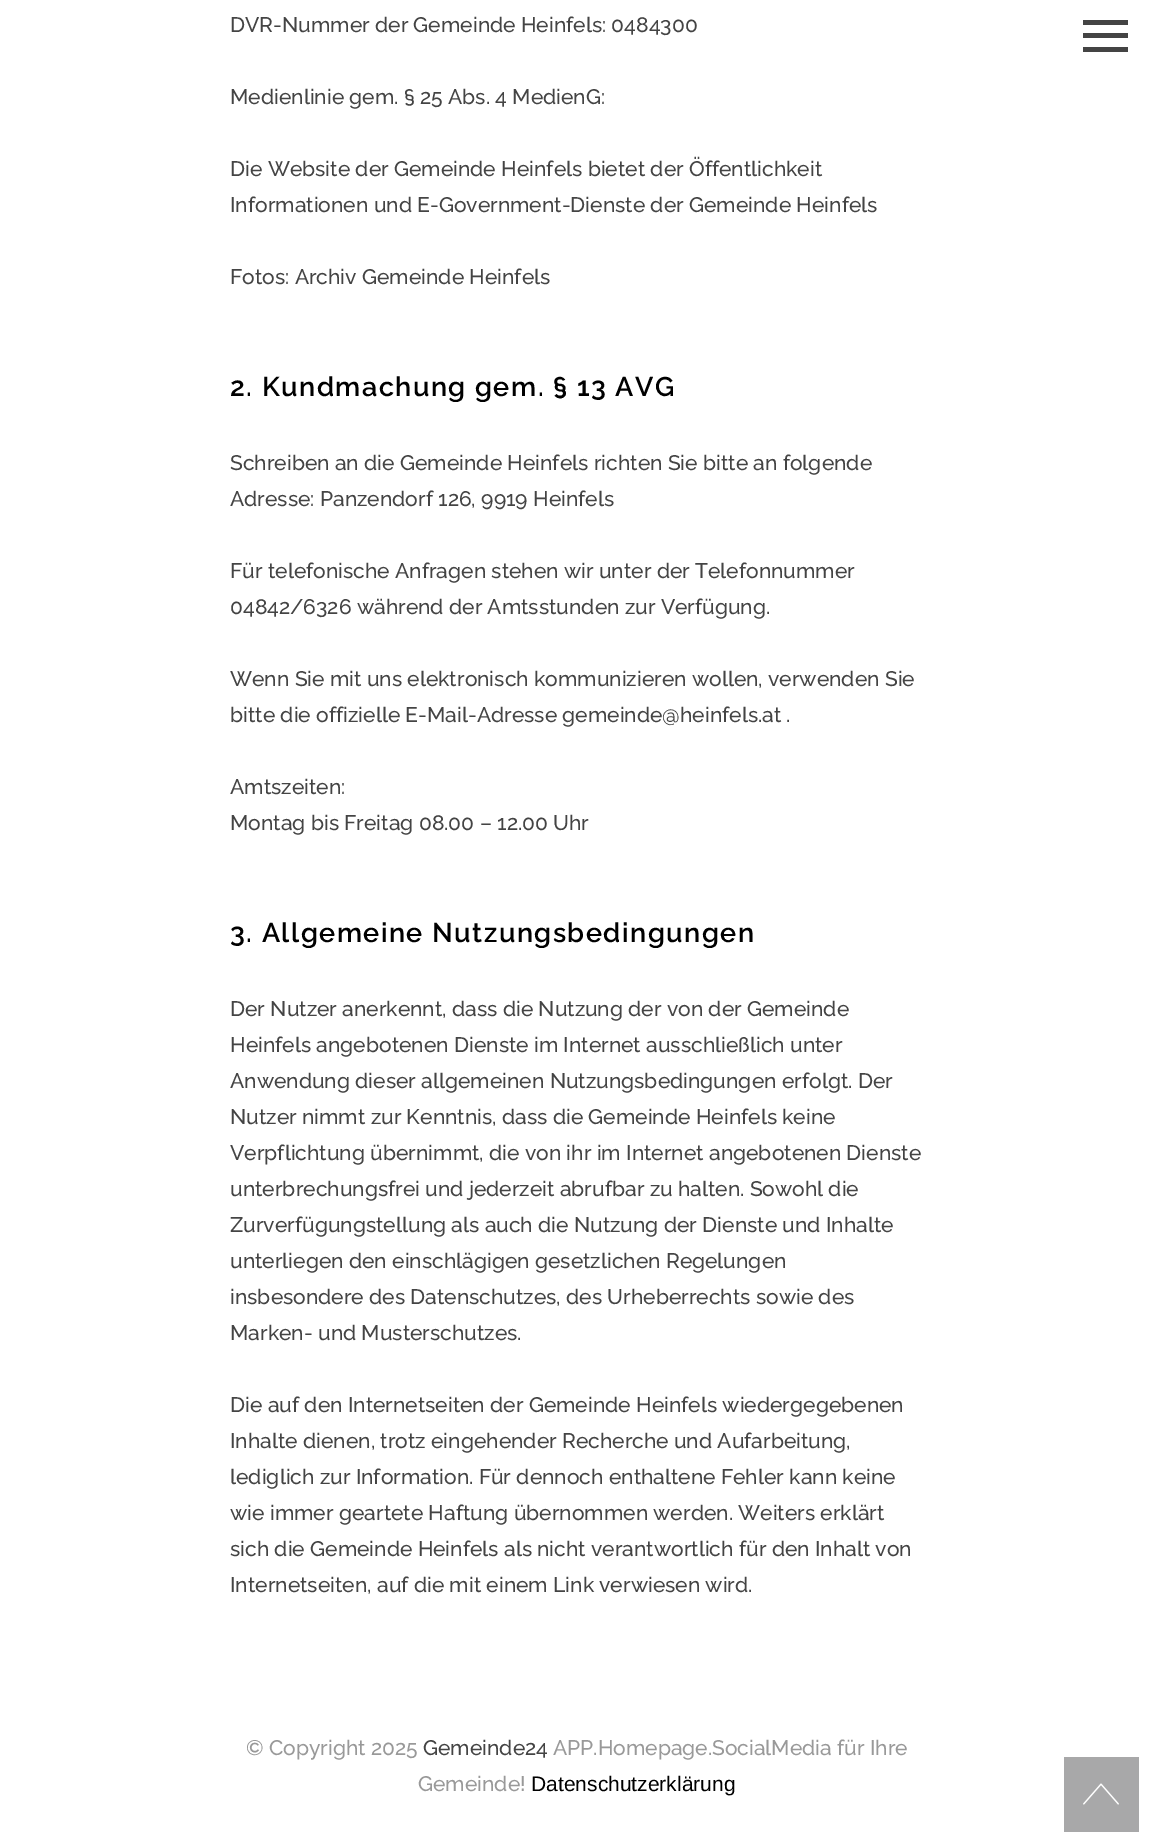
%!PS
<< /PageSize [1153 1846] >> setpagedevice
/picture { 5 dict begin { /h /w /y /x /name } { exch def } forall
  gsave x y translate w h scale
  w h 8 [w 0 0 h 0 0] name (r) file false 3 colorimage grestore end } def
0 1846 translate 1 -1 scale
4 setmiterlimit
1 setgray
0 0 1153 1846 rectfill
/Raleway-Medium [21 0 0 -21 0 0] selectfont
0.267 setgray
230 32 moveto (DVR-Nummer der Gemeinde Heinfels: 0484300) show
230 104 moveto (Medienlinie gem. § 25 Abs. 4 MedienG:) show
230 176 moveto (Die Website der Gemeinde Heinfels bietet der Öffentlichkeit) show
230 212 moveto (Informationen und E-Government-Dienste der Gemeinde Heinfels) show
230 284 moveto (Fotos: Archiv Gemeinde Heinfels) show
/Raleway-SemiBold [27 0 0 -27 0 0] selectfont
0 setgray
230 396 moveto 1.5 0 (2. Kundmachung gem. § 13 AVG) ashow
/Raleway-Medium [21 0 0 -21 0 0] selectfont
0.267 setgray
230 470 moveto (Schreiben an die Gemeinde Heinfels richten Sie bitte an folgende) show
230 506 moveto (Adresse: Panzendorf 126, 9919 Heinfels) show
230 578 moveto (Für telefonische Anfragen stehen wir unter der Telefonnummer) show
230 614 moveto (04842/6326 während der Amtsstunden zur Verfügung.) show
230 686 moveto (Wenn Sie mit uns elektronisch kommunizieren wollen, verwenden Sie) show
230 722 moveto (bitte die offizielle E-Mail-Adresse gemeinde@heinfels.at .) show
230 794 moveto (Amtszeiten:) show
230 830 moveto (Montag bis Freitag 08.00 – 12.00 Uhr) show
/Raleway-SemiBold [27 0 0 -27 0 0] selectfont
0 setgray
230 942 moveto 1.5 0 (3. Allgemeine Nutzungsbedingungen) ashow
/Raleway-Medium [21 0 0 -21 0 0] selectfont
0.267 setgray
230 1016 moveto (Der Nutzer anerkennt, dass die Nutzung der von der Gemeinde) show
230 1052 moveto (Heinfels angebotenen Dienste im Internet ausschließlich unter) show
230 1088 moveto (Anwendung dieser allgemeinen Nutzungsbedingungen erfolgt. Der) show
230 1124 moveto (Nutzer nimmt zur Kenntnis, dass die Gemeinde Heinfels keine) show
230 1160 moveto (Verpflichtung übernimmt, die von ihr im Internet angebotenen Dienste) show
230 1196 moveto (unterbrechungsfrei und jederzeit abrufbar zu halten. Sowohl die) show
230 1232 moveto (Zurverfügungstellung als auch die Nutzung der Dienste und Inhalte) show
230 1268 moveto (unterliegen den einschlägigen gesetzlichen Regelungen) show
230 1304 moveto (insbesondere des Datenschutzes, des Urheberrechts sowie des) show
230 1340 moveto (Marken- und Musterschutzes.) show
230 1412 moveto (Die auf den Internetseiten der Gemeinde Heinfels wiedergegebenen) show
230 1448 moveto (Inhalte dienen, trotz eingehender Recherche und Aufarbeitung,) show
230 1484 moveto (lediglich zur Information. Für dennoch enthaltene Fehler kann keine) show
230 1520 moveto (wie immer geartete Haftung übernommen werden. Weiters erklärt) show
230 1556 moveto (sich die Gemeinde Heinfels als nicht verantwortlich für den Inhalt von) show
230 1592 moveto (Internetseiten, auf die mit einem Link verwiesen wird.) show
1083 20 45 5 rectfill
1083 33 45 5 rectfill
1083 47 45 5 rectfill
0.6 setgray
246 1755 moveto (© Copyright 2025) show
0.267 setgray
423 1755 moveto (Gemeinde24) show
0.6 setgray
553 1755 moveto (APP.Homepage.SocialMedia für Ihre) show
418 1791 moveto (Gemeinde!) show
/LiberationSans-Regular [21 0 0 -21 0 0] selectfont
0 setgray
531 1791 moveto (Datenschutzerklärung) show
0.659 0.659 0.663 setrgbcolor
1064 1757 75 75 rectfill
(img1.rgb) 1083 1783 36 22 picture
showpage
